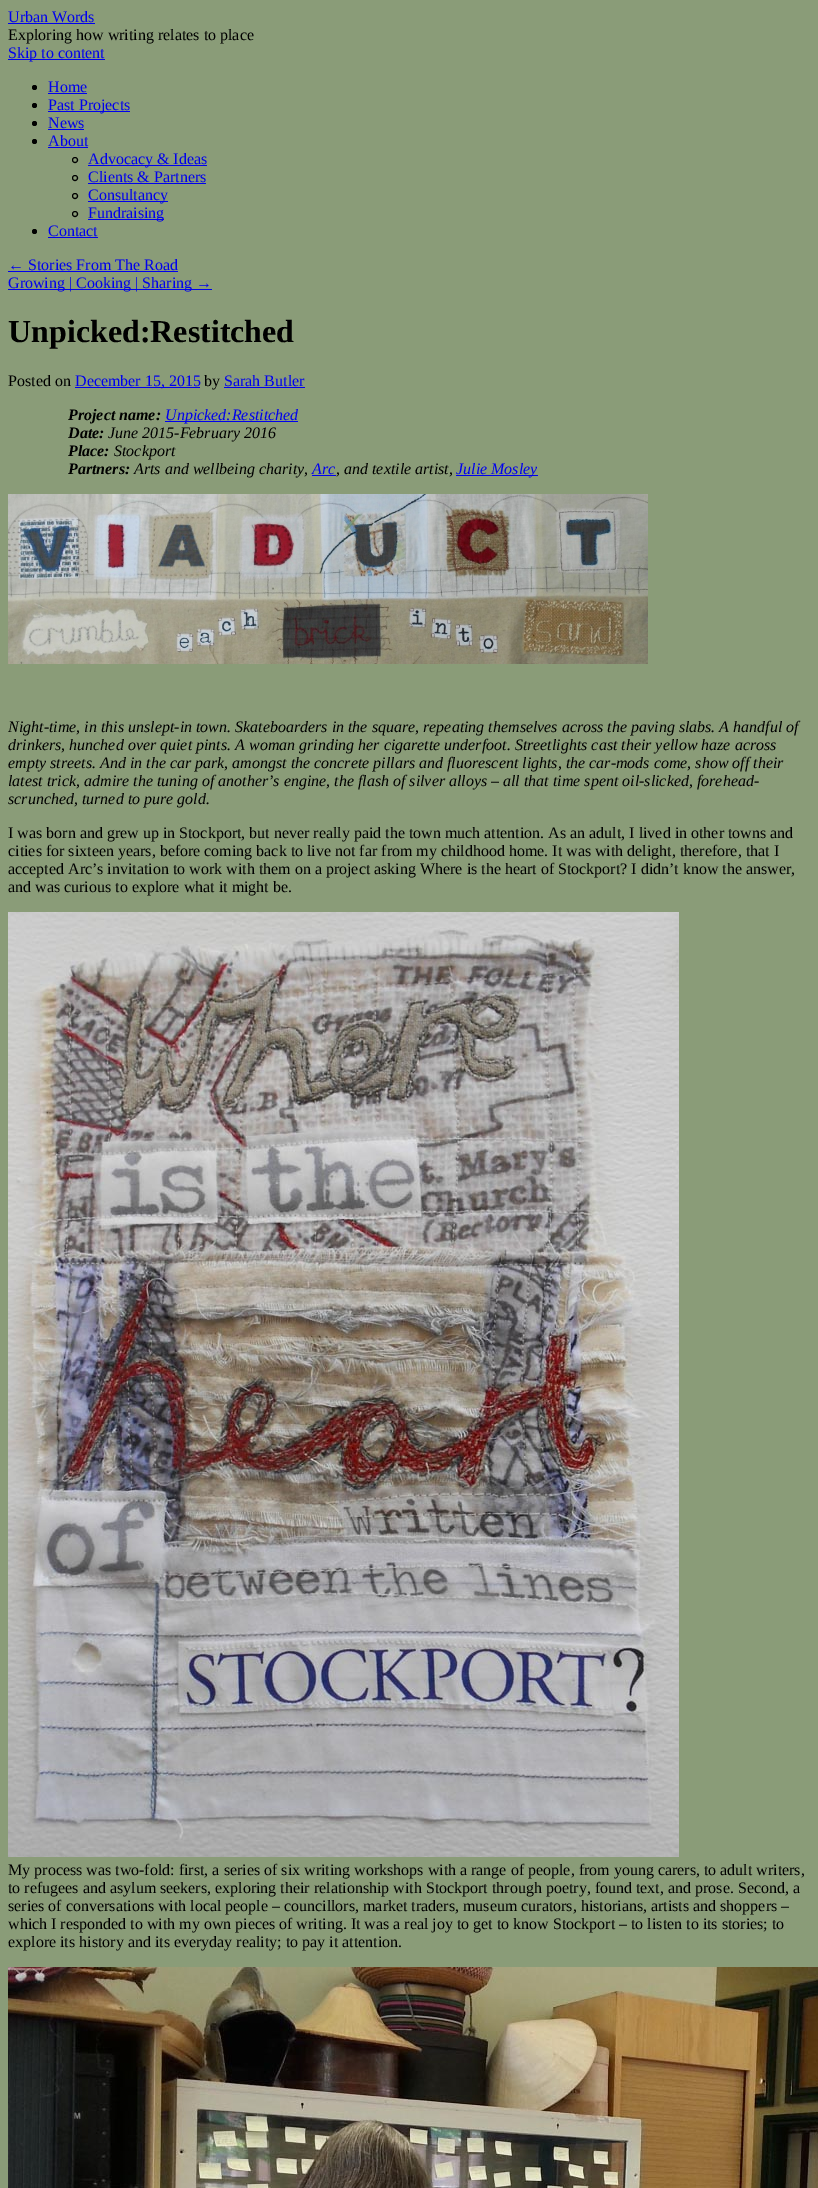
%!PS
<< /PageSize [818 2188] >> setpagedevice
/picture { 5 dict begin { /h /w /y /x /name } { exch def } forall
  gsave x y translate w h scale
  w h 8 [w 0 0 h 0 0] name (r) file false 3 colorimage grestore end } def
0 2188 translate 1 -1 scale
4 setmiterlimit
0.541 0.612 0.471 setrgbcolor
0 0 818 2188 rectfill
/LiberationSerif-Regular [16 0 0 -16 0 0] selectfont
0 0 0.933 setrgbcolor
8 22 moveto (Urban Words) show
8 23 87 1 rectfill
0 setgray
8 40 moveto (Exploring how writing relates to place) show
0 0 0.933 setrgbcolor
8 59 97 1 rectfill
8 58 moveto (Skip to content) show
0 setgray
newpath 34.5 87.5 2.5 0 360 arc closepath fill
0 0 0.933 setrgbcolor
48 92 moveto (Home) show
48 93 39 1 rectfill
0 setgray
newpath 34.5 105.5 2.5 0 360 arc closepath fill
0 0 0.933 setrgbcolor
48 111 82 1 rectfill
48 110 moveto (Past Projects) show
0 setgray
newpath 34.5 123.5 2.5 0 360 arc closepath fill
0 0 0.933 setrgbcolor
48 128 moveto (News) show
48 129 36 1 rectfill
0 setgray
newpath 34.5 141.5 2.5 0 360 arc closepath fill
0 0 0.933 setrgbcolor
48 146 moveto (About) show
48 147 40 1 rectfill
0 setgray
newpath 75 160 2.5 0 360 arc closepath stroke
0 0 0.933 setrgbcolor
88 165 119 1 rectfill
88 164 moveto (Advocacy & Ideas) show
0 setgray
newpath 75 178 2.5 0 360 arc closepath stroke
0 0 0.933 setrgbcolor
88 182 moveto (Clients & Partners) show
88 183 118 1 rectfill
0 setgray
newpath 75 196 2.5 0 360 arc closepath stroke
0 0 0.933 setrgbcolor
88 201 80 1 rectfill
88 200 moveto (Consultancy) show
0 setgray
newpath 75 214 2.5 0 360 arc closepath stroke
0 0 0.933 setrgbcolor
88 219 76 1 rectfill
88 218 moveto (Fundraising) show
0 setgray
newpath 34.5 231.5 2.5 0 360 arc closepath fill
0 0 0.933 setrgbcolor
48 236 moveto (Contact) show
48 237 50 1 rectfill
8 270 moveto (← Stories From The Road) show
8 271 170 1 rectfill
8 289 204 1 rectfill
8 288 moveto (Growing | Cooking | Sharing →) show
/LiberationSerif-Bold [32 0 0 -32 0 0] selectfont
0 setgray
8 342 moveto (Unpicked:Restitched) show
/LiberationSerif-Regular [16 0 0 -16 0 0] selectfont
8 386 moveto (Posted on) show
0 0 0.933 setrgbcolor
75 387 125 1 rectfill
75 386 moveto (December 15, 2015) show
0 setgray
204 386 moveto (by) show
0 0 0.933 setrgbcolor
224 386 moveto (Sarah Butler) show
224 387 81 1 rectfill
/LiberationSerif-BoldItalic [16 0 0 -16 0 0] selectfont
0 setgray
68 420 moveto (Project name:) show
0 0 0.933 setrgbcolor
165 421 133 1 rectfill
/LiberationSerif-Italic [16 0 0 -16 0 0] selectfont
165 420 moveto (Unpicked:Restitched) show
/LiberationSerif-BoldItalic [16 0 0 -16 0 0] selectfont
0 setgray
68 438 moveto (Date:) show
/LiberationSerif-Italic [16 0 0 -16 0 0] selectfont
108 438 moveto (June 2015-February 2016) show
/LiberationSerif-BoldItalic [16 0 0 -16 0 0] selectfont
68 456 moveto (Place:) show
/LiberationSerif-Italic [16 0 0 -16 0 0] selectfont
114 456 moveto (Stockport) show
/LiberationSerif-BoldItalic [16 0 0 -16 0 0] selectfont
68 474 moveto (Partners:) show
/LiberationSerif-Italic [16 0 0 -16 0 0] selectfont
134 474 moveto (Arts and wellbeing charity,) show
0 0 0.933 setrgbcolor
312 474 moveto (Arc) show
0 setgray
336 474 moveto (, and textile artist,) show
0 0 0.933 setrgbcolor
312 475 24 1 rectfill
456 475 82 1 rectfill
456 474 moveto (Julie Mosley) show
(img1.rgb) 8 494 640 170 picture
0 setgray
8 732 moveto (Night-time, in this unslept-in town. Skateboarders in the square, repeating themselves across the paving slabs. A handful of) show
8 750 moveto (drinkers, hunched over quiet pints. A woman grinding her cigarette underfoot. Streetlights cast their yellow haze across) show
8 768 moveto (empty streets. And in the car park, amongst the concrete pillars and fluorescent lights, the car-mods come, show off their) show
8 786 moveto (latest trick, admire the tuning of another’s engine, the flash of silver alloys – all that time spent oil-slicked, forehead-) show
8 804 moveto (scrunched, turned to pure gold.) show
/LiberationSerif-Regular [16 0 0 -16 0 0] selectfont
8 838 moveto (I was born and grew up in Stockport, but never really paid the town much attention. As an adult, I lived in other towns and) show
8 856 moveto (cities for sixteen years, before coming back to live not far from my childhood home. It was with delight, therefore, that I) show
8 874 moveto (accepted Arc’s invitation to work with them on a project asking Where is the heart of Stockport? I didn’t know the answer,) show
8 892 moveto (and was curious to explore what it might be.) show
(img2.rgb) 8 912 671 945 picture
8 1875 moveto (My process was two-fold: first, a series of six writing workshops with a range of people, from young carers, to adult writers,) show
8 1893 moveto (to refugees and asylum seekers, exploring their relationship with Stockport through poetry, found text, and prose. Second, a) show
8 1911 moveto (series of conversations with local people – councillors, market traders, museum curators, historians, artists and shoppers –) show
8 1929 moveto (which I responded to with my own pieces of writing. It was a real joy to get to know Stockport – to listen to its stories; to) show
8 1947 moveto (explore its history and its everyday reality; to pay it attention.) show
(img3.rgb) 8 1967 810 221 picture
showpage
